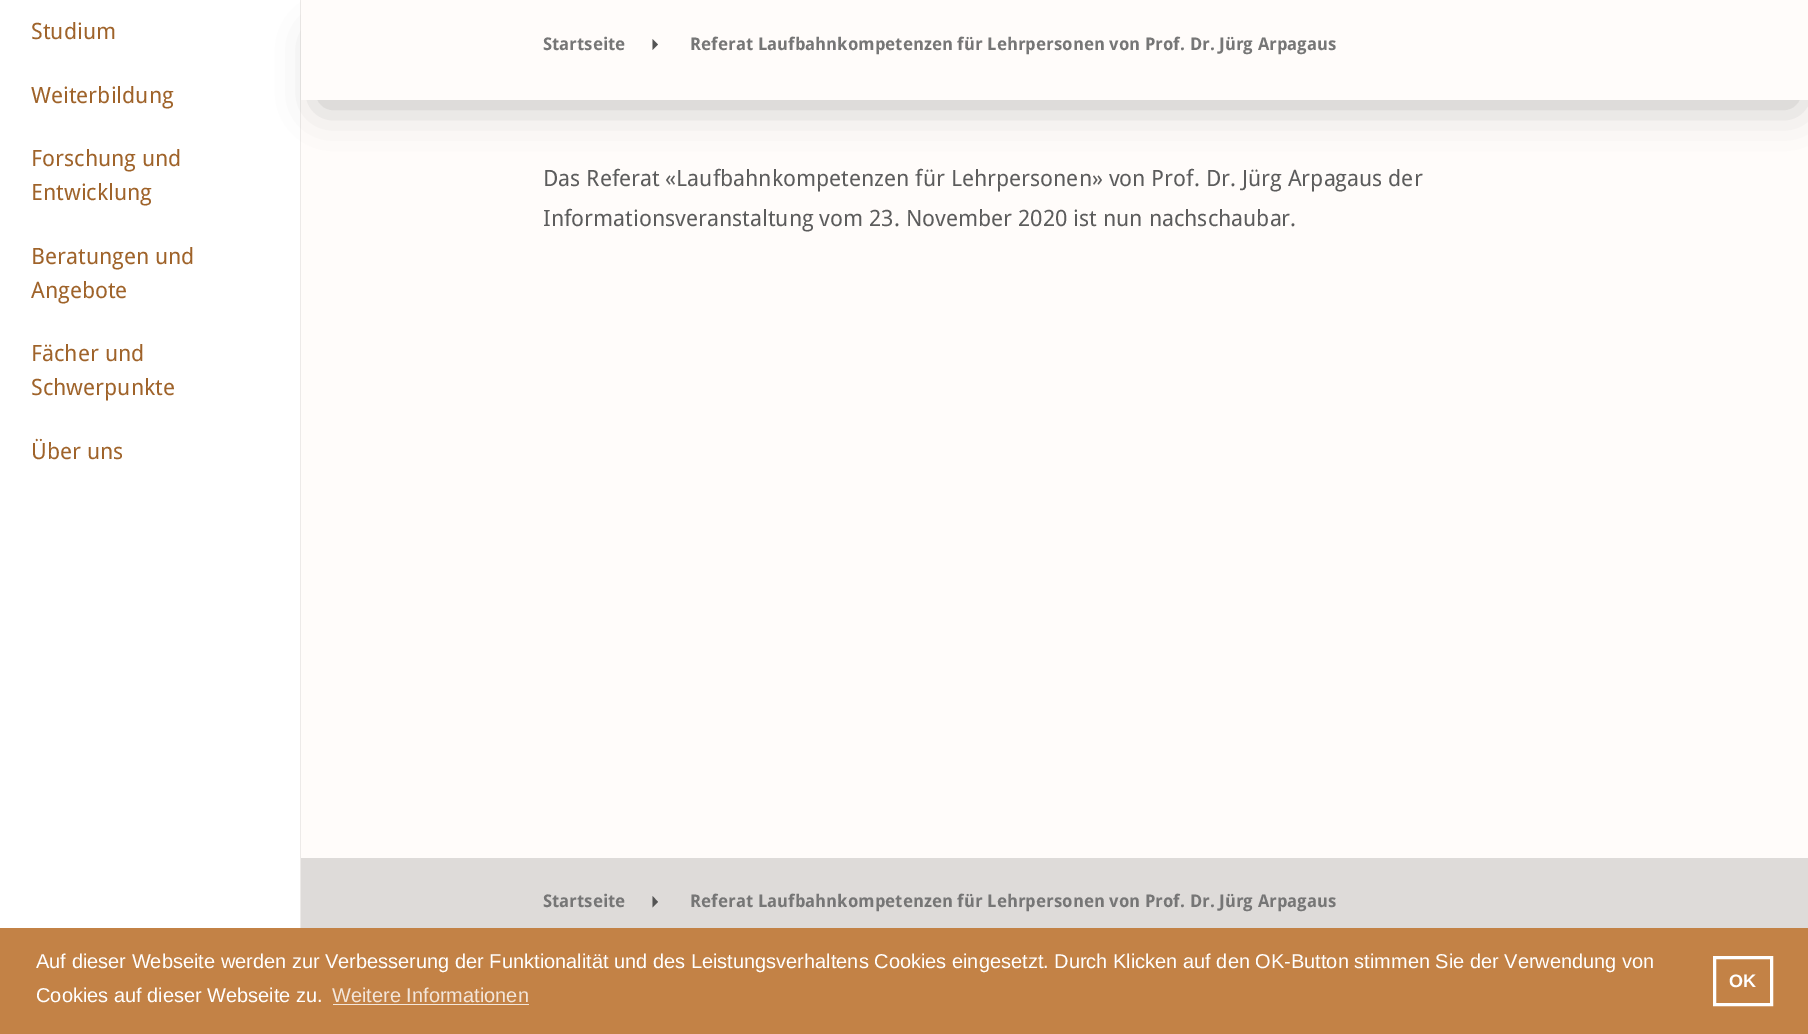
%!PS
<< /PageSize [1808 1034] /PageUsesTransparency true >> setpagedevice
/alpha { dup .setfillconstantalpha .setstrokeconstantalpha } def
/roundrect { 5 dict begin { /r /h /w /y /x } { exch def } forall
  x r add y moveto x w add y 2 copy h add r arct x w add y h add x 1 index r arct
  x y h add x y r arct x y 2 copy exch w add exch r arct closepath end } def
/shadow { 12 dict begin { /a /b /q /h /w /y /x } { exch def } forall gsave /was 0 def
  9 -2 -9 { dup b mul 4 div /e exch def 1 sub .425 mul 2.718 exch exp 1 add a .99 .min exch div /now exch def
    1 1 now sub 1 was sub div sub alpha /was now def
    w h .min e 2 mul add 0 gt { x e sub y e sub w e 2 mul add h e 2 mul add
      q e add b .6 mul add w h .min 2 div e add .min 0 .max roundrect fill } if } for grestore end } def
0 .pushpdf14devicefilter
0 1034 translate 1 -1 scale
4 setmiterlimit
1 setgray
0 0 1808 1034 rectfill
0.929 0.918 0.91 setrgbcolor
300 0 1 928 rectfill
/DroidSans-Regular [22.5 0 0 -22.5 0 0] selectfont
0.624 0.388 0.165 setrgbcolor
31 39 moveto (Studium) show
31 103 moveto (Weiterbildung) show
31 166 moveto (Forschung und) show
31 200 moveto (Entwicklung) show
31 264 moveto (Beratungen und) show
31 298 moveto (Angebote) show
31 361 moveto (Fächer und) show
31 395 moveto (Schwerpunkte) show
31 459 moveto (Über uns) show
1 0.988 0.98 setrgbcolor
301 100 1507 758 rectfill
0 setgray
321 38 1475 67 0 20.5 0.25 shadow
1 0.988 0.98 setrgbcolor
301 0 1507 100 rectfill
/DroidSans-Bold [17.5 0 0 -17.5 0 0] selectfont
0.463 setgray
543 50 moveto (Startseite) show
0.329 setgray
newpath 652.5 39 moveto 658 44.5 lineto 652.5 50 lineto closepath fill
0.463 setgray
690 50 moveto (Referat Laufbahnkompetenzen für Lehrpersonen von Prof. Dr. Jürg Arpagaus) show
/DroidSans-Regular [22.5 0 0 -22.5 0 0] selectfont
0.361 setgray
543 186 moveto (Das Referat «Laufbahnkompetenzen für Lehrpersonen» von Prof. Dr. Jürg Arpagaus der) show
543 226 moveto (Informationsveranstaltung vom 23. November 2020 ist nun nachschaubar.) show
0.871 0.859 0.851 setrgbcolor
301 858 1507 70 rectfill
/DroidSans-Bold [17.5 0 0 -17.5 0 0] selectfont
0.463 setgray
543 907 moveto (Startseite) show
0.329 setgray
newpath 652.5 896 moveto 658 902 lineto 652.5 907.5 lineto closepath fill
0.463 setgray
690 907 moveto (Referat Laufbahnkompetenzen für Lehrpersonen von Prof. Dr. Jürg Arpagaus) show
0.765 0.51 0.275 setrgbcolor
0 928 1808 106 rectfill
/LiberationSans-Regular [20 0 0 -20 0 0] selectfont
1 setgray
36 968 moveto (Auf dieser Webseite werden zur Verbesserung der Funktionalität und des Leistungsverhaltens Cookies eingesetzt. Durch Klicken auf den OK-Button stimmen Sie der Verwendung von) show
36 1002 moveto (Cookies auf dieser Webseite zu.) show
0.953 0.902 0.855 setrgbcolor
332 1002 moveto (Weitere Informationen) show
333 1004 196 1 rectfill
1 setgray
3 setlinewidth
1714.5 957.5 57 47 rectstroke
/LiberationSans-Bold [18 0 0 -18 0 0] selectfont
1729 987 moveto (OK) show
.poppdf14devicefilter showpage
